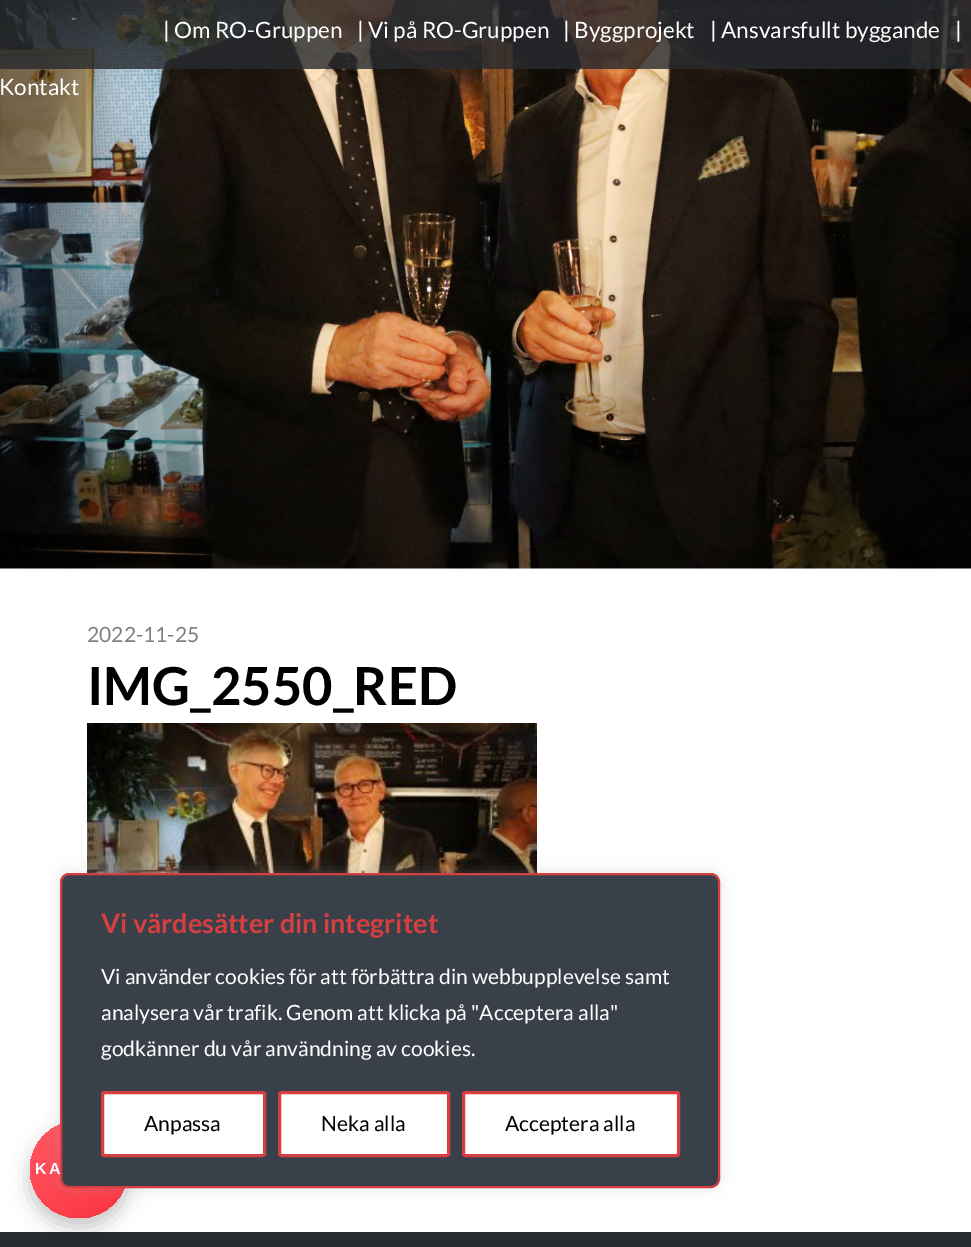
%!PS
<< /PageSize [971 1247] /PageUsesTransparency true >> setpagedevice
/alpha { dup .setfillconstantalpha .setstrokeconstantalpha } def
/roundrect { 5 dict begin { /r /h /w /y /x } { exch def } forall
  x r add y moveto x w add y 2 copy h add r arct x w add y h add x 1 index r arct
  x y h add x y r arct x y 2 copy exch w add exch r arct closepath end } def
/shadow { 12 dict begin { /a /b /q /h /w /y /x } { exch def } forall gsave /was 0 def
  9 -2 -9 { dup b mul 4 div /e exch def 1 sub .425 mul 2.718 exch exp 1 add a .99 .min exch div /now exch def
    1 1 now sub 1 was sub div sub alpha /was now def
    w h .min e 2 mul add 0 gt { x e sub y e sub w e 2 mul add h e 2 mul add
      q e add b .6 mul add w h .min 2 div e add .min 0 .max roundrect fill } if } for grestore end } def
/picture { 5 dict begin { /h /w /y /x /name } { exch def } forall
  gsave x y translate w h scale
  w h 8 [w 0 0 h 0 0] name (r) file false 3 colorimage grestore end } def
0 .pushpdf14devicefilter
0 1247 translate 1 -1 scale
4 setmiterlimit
1 setgray
0 0 971 1247 rectfill
(img2.rgb) 0 0 971 569 picture
0.8 alpha
0.153 0.165 0.184 setrgbcolor
0 0 971 69 rectfill
1 alpha
(img1.rgb) 61 17 15 3 picture
/Lato-Regular [22.5 0 0 -22.5 0 0] selectfont
1 setgray
163 38 moveto (| Om RO-Gruppen) show
357 38 moveto (| Vi på RO-Gruppen) show
563 38 moveto (| Byggprojekt) show
710 38 moveto (| Ansvarsfullt byggande) show
955 38 moveto (|) show
-1 95 moveto (Kontakt) show
/Lato-Regular [21 0 0 -21 0 0] selectfont
0.494 setgray
87 642 moveto (2022-11-25) show
/Lato-Bold [52.5 0 0 -52.5 0 0] selectfont
0 setgray
87 705 moveto (IMG_2550_RED) show
(img3.rgb) 87 723 450 150 picture
0.153 0.165 0.184 setrgbcolor
0 1232 971 15 rectfill
0 setgray
30 1130 98 97 48.5 10 0.23 shadow
gsave 30 1121 98 97 48.5 roundrect clip newpath
<< /ShadingType 2 /ColorSpace /DeviceRGB /Coords [39 1114 119 1224] /Extend [true true] /Function << /FunctionType 2 /Domain [0 1] /C0 [1 0.349 0.392] /C1 [0.984 0.2 0.243] /N 1 >> >> shfill grestore
0.675 0.671 0.671 setrgbcolor
60 872 660 315 9 7.5 0.3 shadow
/LiberationSans-Bold [16 0 0 -16 0 0] selectfont
1 setgray
35 1174 moveto 2 0 (KA) ashow
0.224 0.251 0.286 setrgbcolor
61 874 658 313 8 roundrect gsave fill grestore
0.835 0.247 0.255 setrgbcolor
2 setlinewidth
stroke
/Lato-Bold [27 0 0 -27 0 0] selectfont
0.835 0.247 0.251 setrgbcolor
101 933 moveto (Vi värdesätter din integritet) show
/Lato-Regular [21 0 0 -21 0 0] selectfont
1 setgray
101 984 moveto (Vi använder cookies för att förbättra din webbupplevelse samt) show
101 1020 moveto (analysera vår trafik. Genom att klicka på "Acceptera alla") show
101 1056 moveto (godkänner du vår användning av cookies.) show
102.5 1092.5 162 63 1.5 roundrect gsave fill grestore
0.835 0.247 0.255 setrgbcolor
3 setlinewidth
stroke
0 setgray
144 1131 moveto (Anpassa) show
1 setgray
279.5 1092.5 169 63 1.5 roundrect gsave fill grestore
0.835 0.247 0.255 setrgbcolor
stroke
0 setgray
321 1131 moveto (Neka alla) show
1 setgray
463.5 1092.5 215 63 1.5 roundrect gsave fill grestore
0.835 0.247 0.255 setrgbcolor
stroke
0 setgray
505 1131 moveto (Acceptera alla) show
.poppdf14devicefilter showpage
